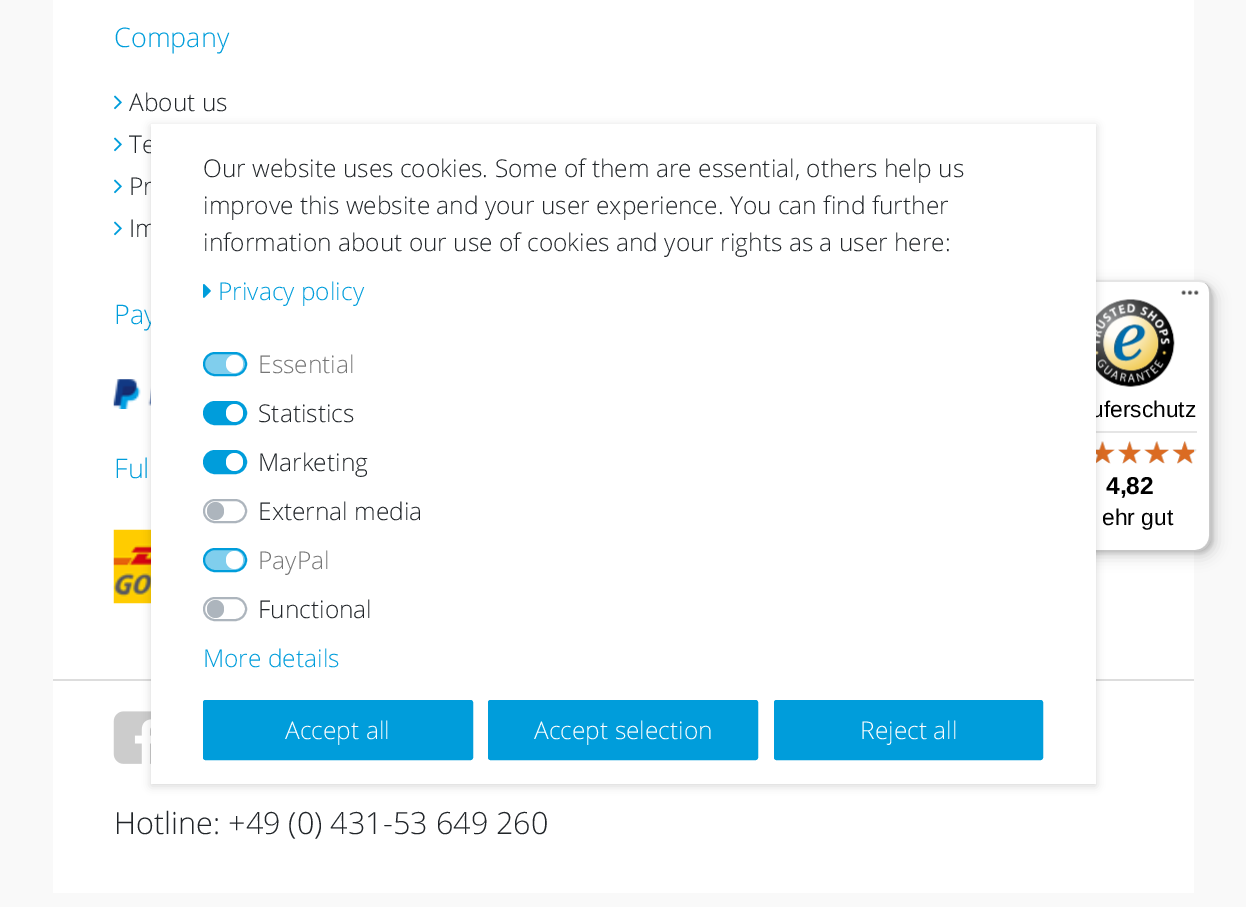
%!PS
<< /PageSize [1246 907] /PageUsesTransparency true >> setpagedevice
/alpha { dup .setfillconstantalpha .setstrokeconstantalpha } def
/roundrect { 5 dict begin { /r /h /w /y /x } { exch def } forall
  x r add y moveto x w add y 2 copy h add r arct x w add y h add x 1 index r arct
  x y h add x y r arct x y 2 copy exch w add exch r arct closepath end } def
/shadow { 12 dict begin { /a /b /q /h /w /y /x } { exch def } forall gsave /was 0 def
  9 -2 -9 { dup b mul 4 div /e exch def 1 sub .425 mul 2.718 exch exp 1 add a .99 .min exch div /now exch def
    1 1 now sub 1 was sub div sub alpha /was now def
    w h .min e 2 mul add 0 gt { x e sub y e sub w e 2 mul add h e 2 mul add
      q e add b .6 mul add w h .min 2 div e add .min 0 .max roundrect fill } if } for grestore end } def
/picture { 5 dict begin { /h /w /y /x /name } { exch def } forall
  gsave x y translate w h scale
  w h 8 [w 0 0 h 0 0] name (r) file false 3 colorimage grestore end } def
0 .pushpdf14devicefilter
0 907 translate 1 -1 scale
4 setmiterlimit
0.976 setgray
0 0 1246 907 rectfill
1 setgray
53 0 1141 679 rectfill
0.867 setgray
53 679 1141 2 rectfill
/OpenSans-Light [27 0 0 -27 0 0] selectfont
0 0.616 0.859 setrgbcolor
114 47 moveto (Company) show
(img1.rgb) 114 95 8 15 picture
/OpenSans-Light [24.5 0 0 -24.5 0 0] selectfont
0.129 0.145 0.161 setrgbcolor
129 111 moveto (About us) show
(img1.rgb) 114 137 8 15 picture
129 153 moveto (Te) show
(img1.rgb) 114 179 8 15 picture
129 195 moveto (Pr) show
(img1.rgb) 114 221 8 15 picture
129 237 moveto (Im) show
/OpenSans-Light [27 0 0 -27 0 0] selectfont
0 0.616 0.859 setrgbcolor
114 324 moveto (Pay) show
(img2.rgb) 113 379 38 30 picture
114 478 moveto (Ful) show
(img3.rgb) 113 529 38 75 picture
1 setgray
53 681 1141 212 rectfill
(img4.rgb) 113 711 38 53 picture
/OpenSans-Light [30.6 0 0 -30.6 0 0] selectfont
0.129 0.145 0.161 setrgbcolor
114 834 moveto (Hotline: +49 \(0\) 431-53 649 260) show
0 setgray
1054 285 162 272 14 7 0.15 shadow
1050 282 163 271 14 2 0.15 shadow
1 setgray
1048 280 163 271 14 roundrect fill
0.1 alpha
0 setgray
newpath 1064 282 moveto 1199 282 lineto 1202 282 1206 283 1208 286 curveto 1206 282 1202 280 1197 280 curveto 1062 280 lineto 1054 280 1048 286 1048 294 curveto 1048 537 lineto 1048 541 1050 545 1053 547 curveto 1051 545 1050 542 1050 539 curveto 1050 296 lineto 1050 288 1056 282 1064 282 curveto closepath fill
0.2 alpha
newpath 1053 548 moveto 1056 550 1059 551 1062 551 curveto 1197 551 lineto 1205 551 1211 545 1211 537 curveto 1211 294 lineto 1211 289 1209 285 1205 283 curveto 1208 285 1209 289 1209 292 curveto 1209 536 lineto 1209 543 1203 550 1195 550 curveto 1060 550 lineto 1058 550 1055 549 1053 548 curveto closepath fill
0.196 setgray
newpath 1053 547 moveto 1055 550 1058 551 1062 551 curveto 1197 551 lineto 1205 551 1211 545 1211 537 curveto 1211 294 lineto 1211 290 1210 287 1207 285 curveto 1209 287 1210 290 1210 293 curveto 1210 536 lineto 1210 544 1204 550 1196 550 curveto 1061 550 lineto 1058 550 1055 549 1053 547 curveto closepath fill
0.3 alpha
1 setgray
newpath 1051 546 moveto 1053 549 1057 551 1062 551 curveto 1197 551 lineto 1205 551 1211 545 1211 537 curveto 1211 294 lineto 1211 290 1210 287 1207 285 curveto 1209 287 1210 290 1210 293 curveto 1210 536 lineto 1210 544 1204 550 1196 550 curveto 1061 550 lineto 1057 550 1054 548 1051 546 curveto closepath fill
1 alpha
(img7.rgb) 1096 299 79 88 picture
0.898 setgray
1096 431 101 2 rectfill
(img8.rgb) 1096 441 19 23 picture
(img12.rgb) 1096 441 19 23 picture
0 setgray
151 126 945 660 0 4.5 0.15 shadow
/LiberationSans-Regular [22.75 0 0 -22.75 0 0] selectfont
1091 417 moveto (uferschutz) show
1 setgray
151 124 945 660 rectfill
/OpenSans-Light [24.5 0 0 -24.5 0 0] selectfont
0.129 0.145 0.161 setrgbcolor
203 177 moveto (Our website uses cookies. Some of them are essential, others help us) show
203 214 moveto (improve this website and your user experience. You can find further) show
203 251 moveto (information about our use of cookies and your rights as a user here:) show
(img5.rgb) 203 284 8 14 picture
0 0.616 0.859 setrgbcolor
218 300 moveto (Privacy policy) show
0.502 0.808 0.929 setrgbcolor
204 353 42 22 11 roundrect gsave fill grestore
0 0.616 0.859 setrgbcolor
2 setlinewidth
stroke
0.463 setgray
258 373 moveto (Essential) show
1 setgray
226 355 17 18 8.5 roundrect fill
0 0.616 0.859 setrgbcolor
204 402 42 22 11 roundrect gsave fill grestore
stroke
1 setgray
226 404 17 18 8.5 roundrect fill
0.129 0.145 0.161 setrgbcolor
258 422 moveto (Statistics) show
0 0.616 0.859 setrgbcolor
204 451 42 22 11 roundrect gsave fill grestore
stroke
0.129 0.145 0.161 setrgbcolor
258 471 moveto (Marketing) show
1 setgray
226 453 17 18 8.5 roundrect fill
0.678 0.71 0.741 setrgbcolor
204 500 42 22 11 roundrect stroke
0.129 0.145 0.161 setrgbcolor
258 520 moveto (External media) show
0.678 0.71 0.741 setrgbcolor
207 502 17 18 8.5 roundrect fill
0.502 0.808 0.929 setrgbcolor
204 549 42 22 11 roundrect gsave fill grestore
0 0.616 0.859 setrgbcolor
stroke
0.463 setgray
258 569 moveto (PayPal) show
1 setgray
226 551 17 18 8.5 roundrect fill
0.678 0.71 0.741 setrgbcolor
204 598 42 22 11 roundrect stroke
0.129 0.145 0.161 setrgbcolor
258 618 moveto (Functional) show
0.678 0.71 0.741 setrgbcolor
207 600 17 18 8.5 roundrect fill
0 0.616 0.859 setrgbcolor
203 667 moveto (More details) show
204 701 268 58 1.5 roundrect gsave fill grestore
stroke
1 setgray
285 739 moveto (Accept all) show
0 0.616 0.859 setrgbcolor
489 701 268 58 1.5 roundrect gsave fill grestore
stroke
1 setgray
534 739 moveto (Accept selection) show
0 0.616 0.859 setrgbcolor
775 701 267 58 1.5 roundrect gsave fill grestore
stroke
1 setgray
860 739 moveto (Reject all) show
(img6.rgb) 1181 290 18 5 picture
(img9.rgb) 1118 441 23 23 picture
(img10.rgb) 1144 441 25 22 picture
(img11.rgb) 1173 441 24 23 picture
(img13.rgb) 1118 441 23 23 picture
(img14.rgb) 1144 441 25 23 picture
(img15.rgb) 1172 441 22 23 picture
/LiberationSans-Bold [24.5 0 0 -24.5 0 0] selectfont
0 setgray
1106 494 moveto (4,82) show
/LiberationSans-Regular [22.75 0 0 -22.75 0 0] selectfont
1102 525 moveto (ehr gut) show
.poppdf14devicefilter showpage
